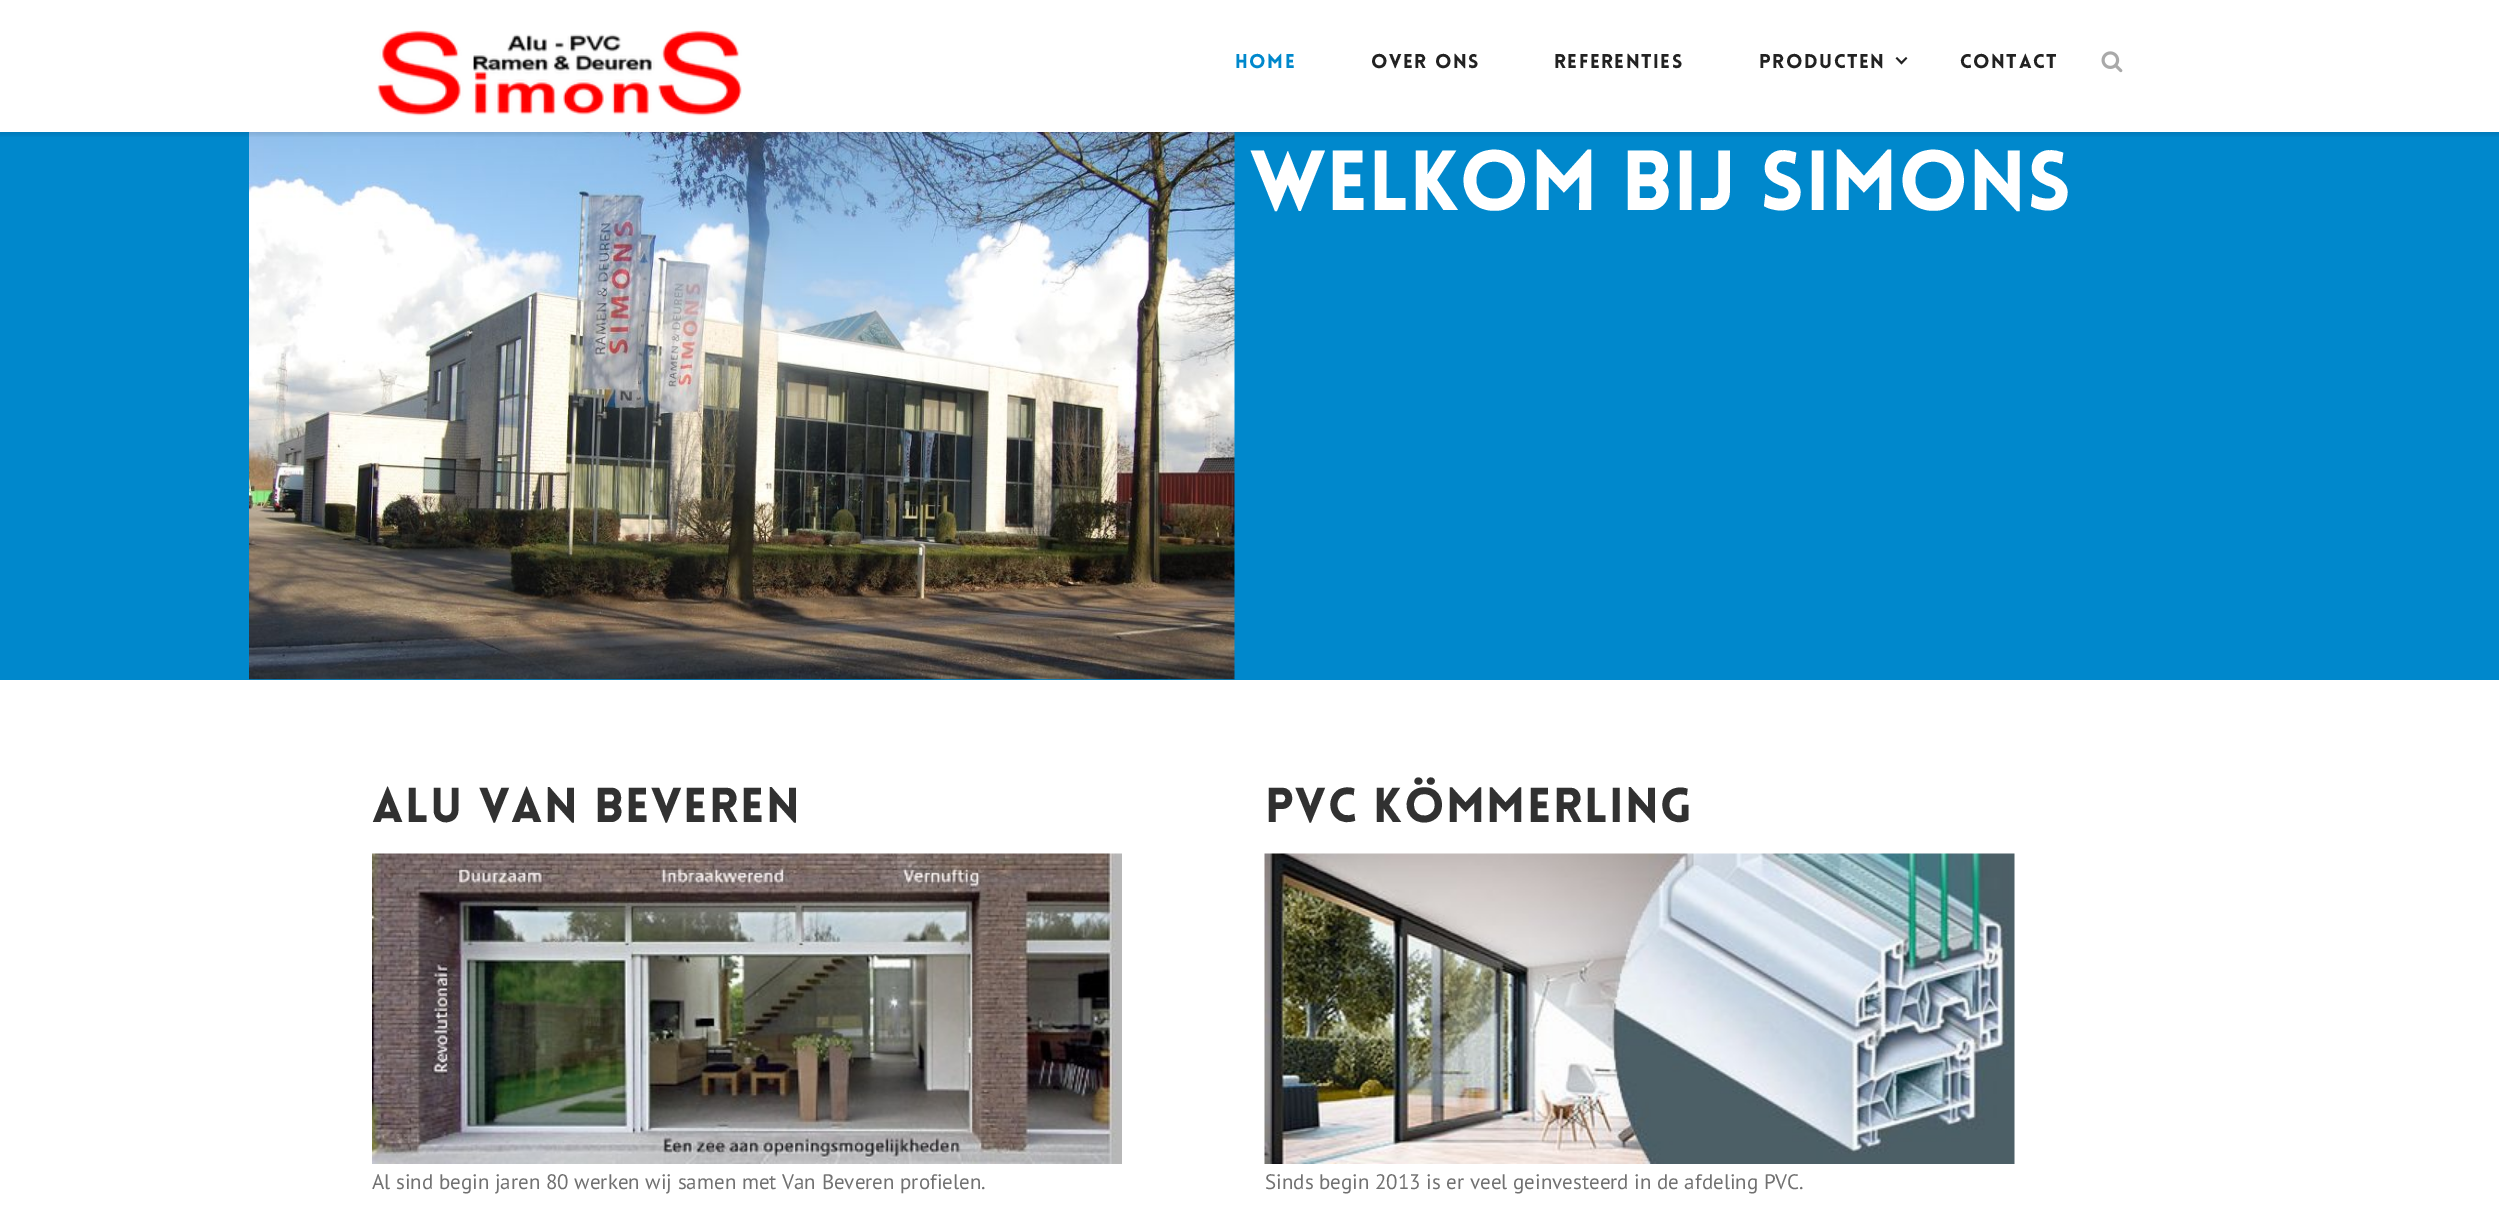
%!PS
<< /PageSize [2499 1212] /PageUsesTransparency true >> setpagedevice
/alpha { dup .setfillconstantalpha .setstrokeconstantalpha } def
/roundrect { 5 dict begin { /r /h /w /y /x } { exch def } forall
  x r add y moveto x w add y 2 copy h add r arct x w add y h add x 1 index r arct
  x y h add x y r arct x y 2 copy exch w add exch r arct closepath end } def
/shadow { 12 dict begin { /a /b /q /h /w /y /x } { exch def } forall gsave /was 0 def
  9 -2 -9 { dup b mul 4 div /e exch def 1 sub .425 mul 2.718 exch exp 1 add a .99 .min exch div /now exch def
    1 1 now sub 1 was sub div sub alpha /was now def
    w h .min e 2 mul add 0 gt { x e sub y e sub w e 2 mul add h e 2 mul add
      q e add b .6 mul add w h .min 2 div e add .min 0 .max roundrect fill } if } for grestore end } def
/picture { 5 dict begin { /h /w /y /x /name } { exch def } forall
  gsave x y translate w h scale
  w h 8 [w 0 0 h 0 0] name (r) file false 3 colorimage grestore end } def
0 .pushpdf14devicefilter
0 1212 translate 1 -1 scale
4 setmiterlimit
1 setgray
0 0 2499 1212 rectfill
0 0.533 0.8 setrgbcolor
0 132 2499 548 rectfill
(img4.rgb) 249 132 986 548 picture
gsave
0 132 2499 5 rectclip
0 setgray
-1 0 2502 135 0 2 0.09 shadow
grestore
(img1.rgb) 377 30 365 86 picture
/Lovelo-Black [19.5 0 0 -19.5 0 0] selectfont
1235 68 moveto 1.5 0 (HOME) ashow
0.133 setgray
1371 68 moveto 1.5 0 (OVER ONS) ashow
1554 68 moveto 1.5 0 (REFERENTIES) ashow
1759 68 moveto 1.5 0 (PRODUCTEN) ashow
(img2.rgb) 1895 57 13 8 picture
1960 68 moveto 1.5 0 (CONTACT) ashow
(img3.rgb) 2101 51 22 22 picture
/Lovelo-Black [83.25 0 0 -83.25 0 0] selectfont
1 setgray
1250 210 moveto (WELKOM bij SIMONS) show
/Lovelo-Black [48 0 0 -48 0 0] selectfont
0.192 setgray
372 822 moveto 1.5 0 (Alu Van Beveren) ashow
(img5.rgb) 372 853 750 311 picture
/PTSans-Regular [21 0 0 -21 0 0] selectfont
0.443 setgray
372 1189 moveto (Al sind begin jaren 80 werken wij samen met Van Beveren profielen.) show
/Lovelo-Black [48 0 0 -48 0 0] selectfont
0.192 setgray
1265 822 moveto 1.5 0 (PVC Kömmerling) ashow
(img6.rgb) 1264 853 751 311 picture
/PTSans-Regular [21 0 0 -21 0 0] selectfont
0.443 setgray
1265 1189 moveto (Sinds begin 2013 is er veel geinvesteerd in de afdeling PVC.) show
.poppdf14devicefilter showpage
